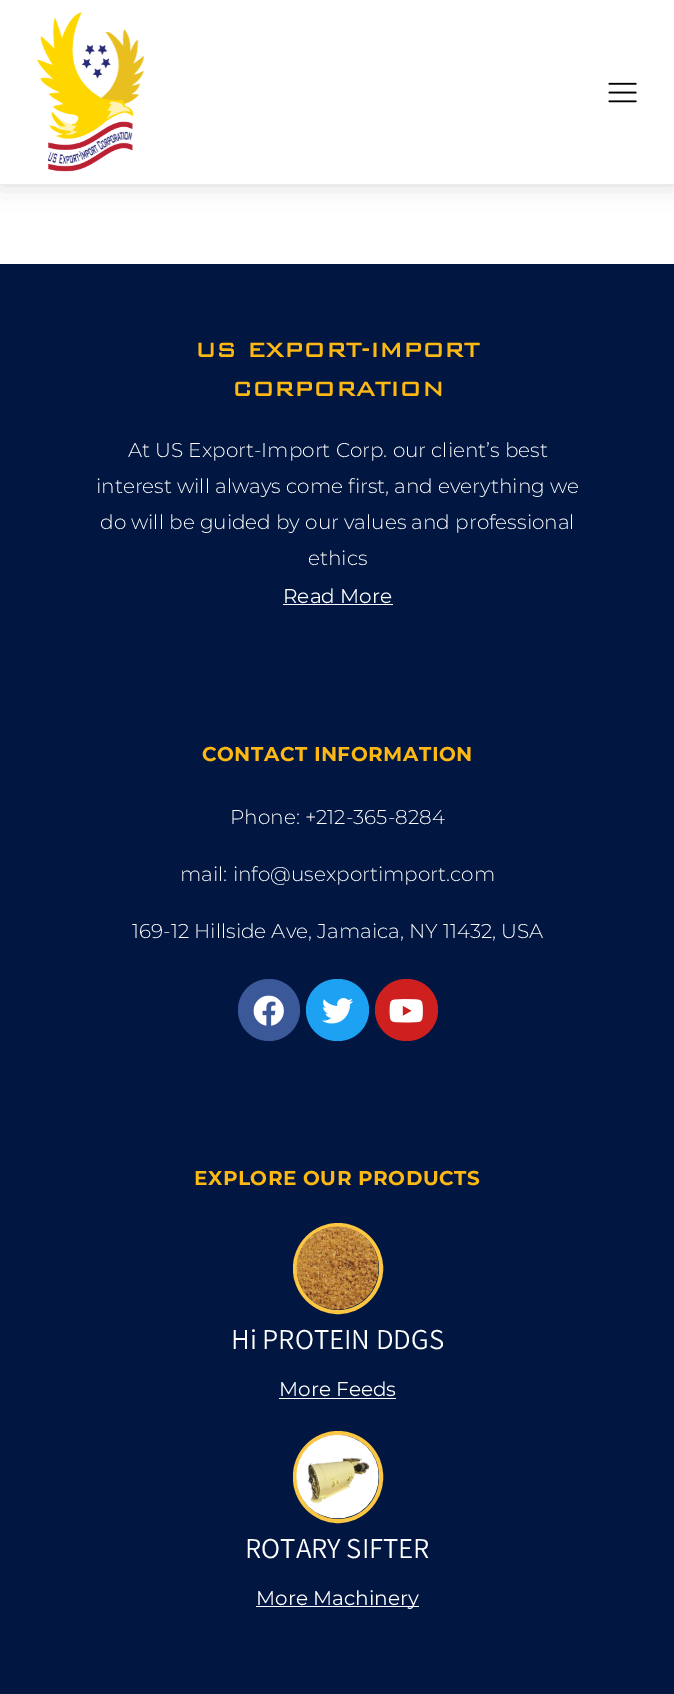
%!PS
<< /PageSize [674 1694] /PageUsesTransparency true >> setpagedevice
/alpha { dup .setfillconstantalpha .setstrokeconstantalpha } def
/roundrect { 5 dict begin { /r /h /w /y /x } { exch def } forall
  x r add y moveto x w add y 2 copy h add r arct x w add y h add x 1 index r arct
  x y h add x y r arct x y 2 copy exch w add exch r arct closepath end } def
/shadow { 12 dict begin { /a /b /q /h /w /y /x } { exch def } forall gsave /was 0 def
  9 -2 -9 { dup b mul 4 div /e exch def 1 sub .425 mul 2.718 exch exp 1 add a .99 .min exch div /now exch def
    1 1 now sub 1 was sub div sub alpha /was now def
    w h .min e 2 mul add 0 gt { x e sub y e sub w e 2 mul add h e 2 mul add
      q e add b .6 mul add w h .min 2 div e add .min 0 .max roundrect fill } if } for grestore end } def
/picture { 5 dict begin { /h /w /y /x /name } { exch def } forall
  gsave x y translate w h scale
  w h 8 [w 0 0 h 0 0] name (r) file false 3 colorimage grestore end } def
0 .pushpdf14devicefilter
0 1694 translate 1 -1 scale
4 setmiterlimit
1 setgray
0 0 674 1694 rectfill
0 setgray
0 0 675 184 0 12.5 0.15 shadow
1 setgray
0 0 674 184 rectfill
(img1.rgb) 37 12 107 160 picture
(img2.rgb) 608 82 29 21 picture
0.004 0.086 0.251 setrgbcolor
0 264 674 1430 rectfill
/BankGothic-Bold [26.25 0 0 -26.25 0 0] selectfont
0.992 0.722 0.075 setrgbcolor
195 357 moveto (US EXPORT-IMPORT) show
232 396 moveto (CORPORATION) show
/Montserrat-Light [20 0 0 -20 0 0] selectfont
1 setgray
128 457 moveto (At US Export-Import Corp. our client’s best) show
96 493 moveto (interest will always come first, and everything we) show
100 529 moveto (do will be guided by our values and professional) show
308 565 moveto (ethics) show
/Montserrat-Regular [20 0 0 -20 0 0] selectfont
283 603 moveto (Read More) show
283 604 110 1 rectfill
/Montserrat-Bold [20 0 0 -20 0 0] selectfont
0.992 0.722 0.075 setrgbcolor
202 761 moveto 0.5 0 (CONTACT INFORMATION) ashow
/Montserrat-Light [20 0 0 -20 0 0] selectfont
1 setgray
230 824 moveto (Phone: +212-365-8284) show
180 881 moveto (mail: info@usexportimport.com) show
132 938 moveto (169-12 Hillside Ave, Jamaica, NY 11432, USA) show
0.231 0.349 0.596 setrgbcolor
newpath 269 1010 31 0 360 arc closepath fill
(img3.rgb) 253 995 31 31 picture
0.114 0.631 0.949 setrgbcolor
306 979 63 62 31 roundrect fill
(img4.rgb) 322 998 31 26 picture
0.804 0.125 0.122 setrgbcolor
375 979 63 62 31 roundrect fill
(img5.rgb) 389 999 34 24 picture
/Montserrat-Bold [20 0 0 -20 0 0] selectfont
0.992 0.722 0.075 setrgbcolor
194 1185 moveto 0.5 0 (EXPLORE OUR PRODUCTS) ashow
0.988 0.776 0.263 setrgbcolor
4 setlinewidth
295 1225 86 87 43 roundrect stroke
(img6.rgb) 296 1226 83 84 picture
/Assistant-Regular [28.75 0 0 -28.75 0 0] selectfont
1 setgray
231 1349 moveto (Hi PROTEIN DDGS) show
/Montserrat-Regular [20 0 0 -20 0 0] selectfont
279 1396 moveto (More Feeds) show
279 1398 117 1 rectfill
0.988 0.776 0.263 setrgbcolor
295 1433 86 88 43 roundrect stroke
(img7.rgb) 296 1434 83 85 picture
/Assistant-Regular [28.75 0 0 -28.75 0 0] selectfont
1 setgray
245 1558 moveto (ROTARY SIFTER) show
256 1606 163 1 rectfill
/Montserrat-Regular [20 0 0 -20 0 0] selectfont
256 1605 moveto (More Machinery) show
.poppdf14devicefilter showpage
